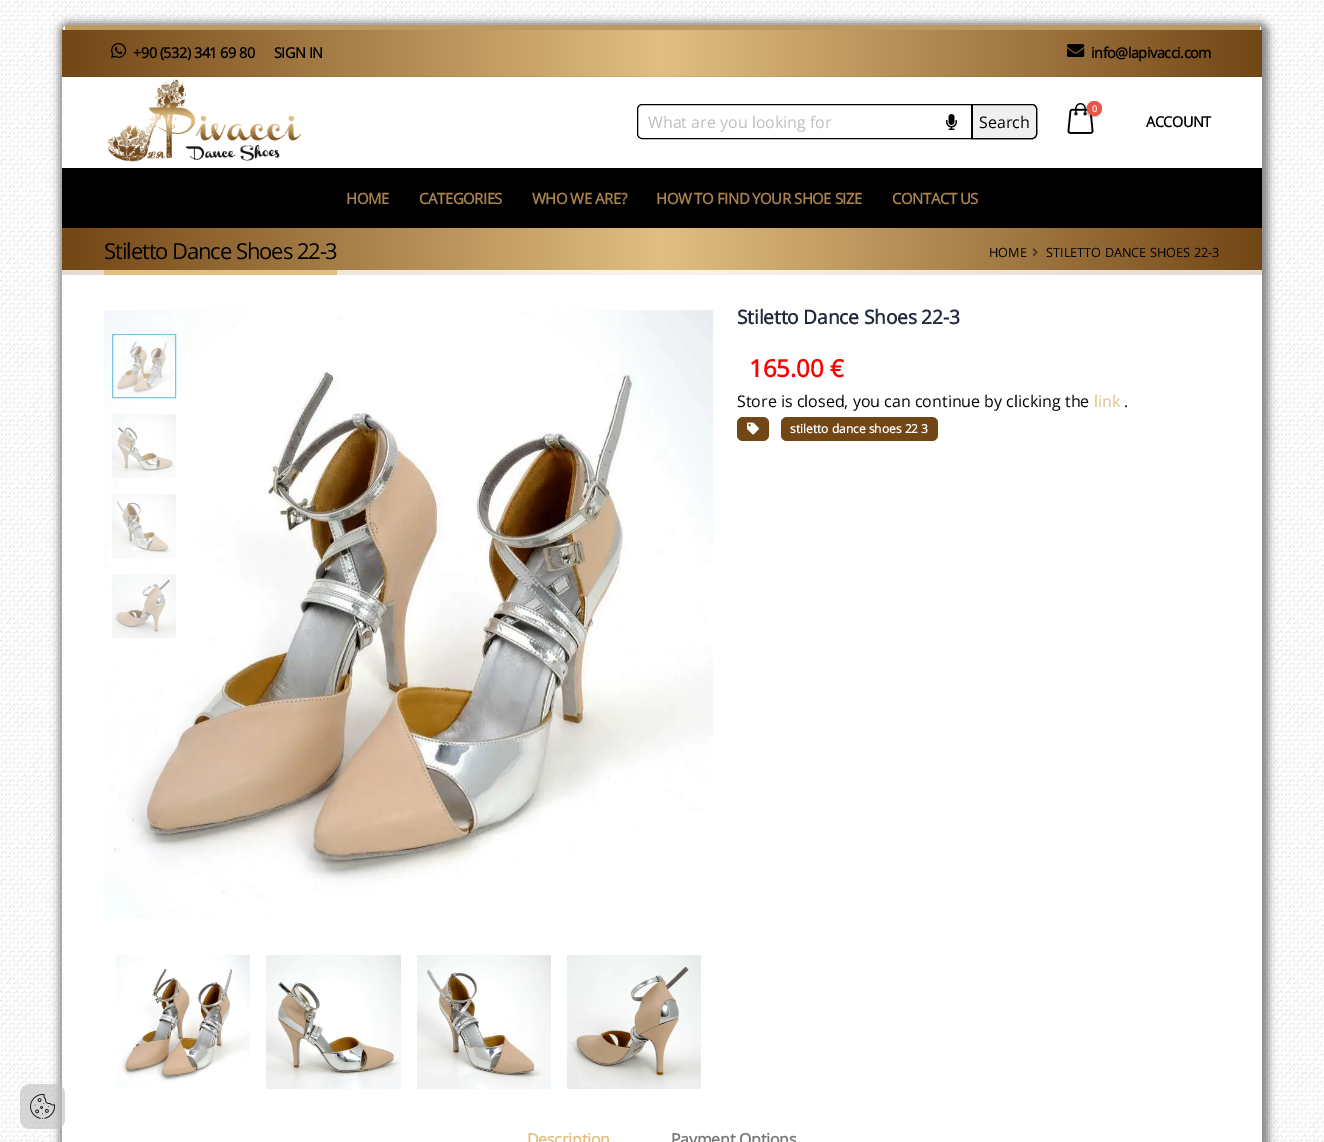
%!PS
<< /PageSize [1324 1142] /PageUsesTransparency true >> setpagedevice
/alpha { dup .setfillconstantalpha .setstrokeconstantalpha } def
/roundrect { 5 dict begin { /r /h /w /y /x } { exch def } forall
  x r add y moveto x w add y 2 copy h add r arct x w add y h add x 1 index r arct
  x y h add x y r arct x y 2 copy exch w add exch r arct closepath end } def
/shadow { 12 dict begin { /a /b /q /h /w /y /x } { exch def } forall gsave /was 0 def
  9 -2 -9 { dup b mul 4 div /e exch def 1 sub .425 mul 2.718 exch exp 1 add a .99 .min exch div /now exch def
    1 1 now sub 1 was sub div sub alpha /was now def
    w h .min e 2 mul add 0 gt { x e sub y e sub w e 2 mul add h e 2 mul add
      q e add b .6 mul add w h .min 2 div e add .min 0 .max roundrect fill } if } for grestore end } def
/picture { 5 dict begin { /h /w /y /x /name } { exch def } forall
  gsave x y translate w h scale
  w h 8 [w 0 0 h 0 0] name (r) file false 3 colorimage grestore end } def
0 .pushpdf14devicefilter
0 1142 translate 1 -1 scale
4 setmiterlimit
1 setgray
0 0 1324 1142 rectfill
(img1.rgb) 0 0 1324 1142 picture
gsave
newpath 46 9 moveto 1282 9 lineto 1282 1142 lineto 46 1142 lineto closepath 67 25 moveto 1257 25 lineto 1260 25 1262 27 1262 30 curveto 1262 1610 lineto 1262 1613 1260 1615 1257 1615 curveto 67 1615 lineto 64 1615 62 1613 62 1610 curveto 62 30 lineto 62 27 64 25 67 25 curveto closepath eoclip newpath
0.533 setgray
59 22 1210 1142 10 4 1 shadow
grestore
62 275 1200 867 rectfill
0.61 alpha
0.745 setgray
20 1084 45 45 10 roundrect fill
1 alpha
(img2.rgb) 30 1094 25 25 picture
0.745 0.6 0.376 setrgbcolor
65 25 1195 5 rectfill
1 setgray
62 77 1200 91 rectfill
gsave newpath 62 30 moveto 1262 30 lineto 1262 77 lineto 62 77 lineto closepath clip newpath
<< /ShadingType 2 /ColorSpace /DeviceRGB /Coords [62 53 1262 53] /Extend [true true] /Function << /FunctionType 3 /Domain [0 1] /Functions [<< /FunctionType 2 /Domain [0 1] /C0 [0.451 0.275 0.082] /C1 [0.882 0.749 0.514] /N 1 >> << /FunctionType 2 /Domain [0 1] /C0 [0.882 0.749 0.514] /C1 [0.451 0.275 0.082] /N 1 >>] /Bounds [0.5] /Encode [0 1 0 1] >> >> shfill grestore
0.06 alpha
0 setgray
62 76 1200 1 rectfill
1 alpha
(img3.rgb) 111 43 16 15 picture
/OpenSans-Bold [14.5 0 0 -14.5 0 0] selectfont
133 58 moveto -0.5 0 (+90 \(532\) 341 69 80) ashow
274 58 moveto -0.5 0 (SIGN IN) ashow
(img4.rgb) 1067 44 18 13 picture
1091 58 moveto -0.5 0 (info@lapivacci.com) ashow
(img5.rgb) 107 79 194 83 picture
637.5 104.5 399 34 4.5 roundrect stroke
/OpenSans-Regular [16 0 0 -16 0 0] selectfont
0.741 setgray
648 128 moveto (What are you looking for) show
(img6.rgb) 946 114 11 16 picture
0.937 setgray
newpath 971.5 104.5 moveto 1032 104.5 lineto 1034.5 104.5 1036.5 106.5 1036.5 109 curveto 1036.5 134 lineto 1036.5 136.5 1034.5 138.5 1032 138.5 curveto 971.5 138.5 lineto closepath gsave fill grestore
0 setgray
stroke
972 104 1 35 rectfill
979 128 moveto (Search) show
(img7.rgb) 1067 103 27 31 picture
1086 102 15 15 7.5 1 0.3 shadow
0.929 0.325 0.282 setrgbcolor
newpath 1094.5 108.5 7.5 0 360 arc closepath fill
/OpenSans-Bold [9 0 0 -9 0 0] selectfont
1 setgray
1092 112 moveto (0) show
/OpenSans-Bold [14.5 0 0 -14.5 0 0] selectfont
0 setgray
1146 127 moveto -0.5 0 (ACCOUNT) ashow
62 168 1200 60 rectfill
gsave newpath 62 228 moveto 1262 228 lineto 1262 275 lineto 62 275 lineto closepath clip newpath
<< /ShadingType 2 /ColorSpace /DeviceRGB /Coords [62 252 1262 251] /Extend [true true] /Function << /FunctionType 3 /Domain [0 1] /Functions [<< /FunctionType 2 /Domain [0 1] /C0 [0.451 0.275 0.082] /C1 [0.882 0.749 0.514] /N 1 >> << /FunctionType 2 /Domain [0 1] /C0 [0.882 0.749 0.514] /C1 [0.451 0.275 0.082] /N 1 >>] /Bounds [0.5] /Encode [0 1 0 1] >> >> shfill grestore
0.07 alpha
403 228 1 1 rectfill
/OpenSans-Bold [15 0 0 -15 0 0] selectfont
1 alpha
0.667 0.514 0.298 setrgbcolor
346 204 moveto -0.5 0 (HOME) ashow
0.07 alpha
0 setgray
516 228 1 1 rectfill
1 alpha
0.667 0.514 0.298 setrgbcolor
419 204 moveto -0.5 0 (CATEGORIES) ashow
0.07 alpha
0 setgray
641 228 1 1 rectfill
1 alpha
0.667 0.514 0.298 setrgbcolor
532 204 moveto -0.5 0 (WHO WE ARE?) ashow
0.07 alpha
0 setgray
876 228 1 1 rectfill
1 alpha
0.667 0.514 0.298 setrgbcolor
656 204 moveto -0.5 0 (HOW TO FIND YOUR SHOE SIZE) ashow
892 204 moveto -0.5 0 (CONTACT US) ashow
/OpenSans-Regular [22 0 0 -22 0 0] selectfont
0 setgray
104 259 moveto -1.1 0 (Stiletto Dance Shoes 22-3) ashow
0.8 alpha
1 setgray
62 270 1200 5 rectfill
1 alpha
0.882 0.749 0.514 setrgbcolor
104 270 233 5 rectfill
/OpenSans-Regular [12.75 0 0 -12.75 0 0] selectfont
0 setgray
989 257 moveto (HOME) show
(img8.rgb) 1032 248 6 9 picture
1046 257 moveto (STILETTO DANCE SHOES 22-3) show
(img9.rgb) 104 310 609 609 picture
0.5 alpha
0 0.533 0.8 setrgbcolor
112.5 334.5 63 63 rectstroke
1 alpha
(img10.rgb) 115 335 60 58 picture
(img11.rgb) 112 414 64 64 picture
(img12.rgb) 112 494 64 64 picture
(img13.rgb) 112 574 64 64 picture
(img14.rgb) 116 955 134 134 picture
(img15.rgb) 266 955 135 134 picture
(img16.rgb) 417 955 134 134 picture
(img17.rgb) 567 955 134 134 picture
/OpenSans-Bold [19.25 0 0 -19.25 0 0] selectfont
0.129 0.161 0.235 setrgbcolor
737 324 moveto -0.2 0 (Stiletto Dance Shoes 22-3) ashow
/OpenSans-Bold [24 0 0 -24 0 0] selectfont
1 0 0 setrgbcolor
749 377 moveto (165.00 €) show
/OpenSans-Regular [16 0 0 -16 0 0] selectfont
0 setgray
737 407 moveto (Store is closed, you can continue by clicking the) show
0.882 0.749 0.514 setrgbcolor
1094 407 moveto (link) show
0 setgray
1124 407 moveto (.) show
0.451 0.275 0.082 setrgbcolor
737 417 32 24 6 roundrect fill
(img18.rgb) 747 422 12 13 picture
781 417 157 24 6 roundrect fill
/OpenSans-Bold [12 0 0 -12 0 0] selectfont
1 setgray
790 433 moveto (stiletto dance shoes 22 3) show
/OpenSans-Bold [16 0 0 -16 0 0] selectfont
0.882 0.749 0.514 setrgbcolor
527 1145 moveto -0.25 0 (Description) ashow
0.467 setgray
671 1145 moveto -0.25 0 (Payment Options) ashow
.poppdf14devicefilter showpage
